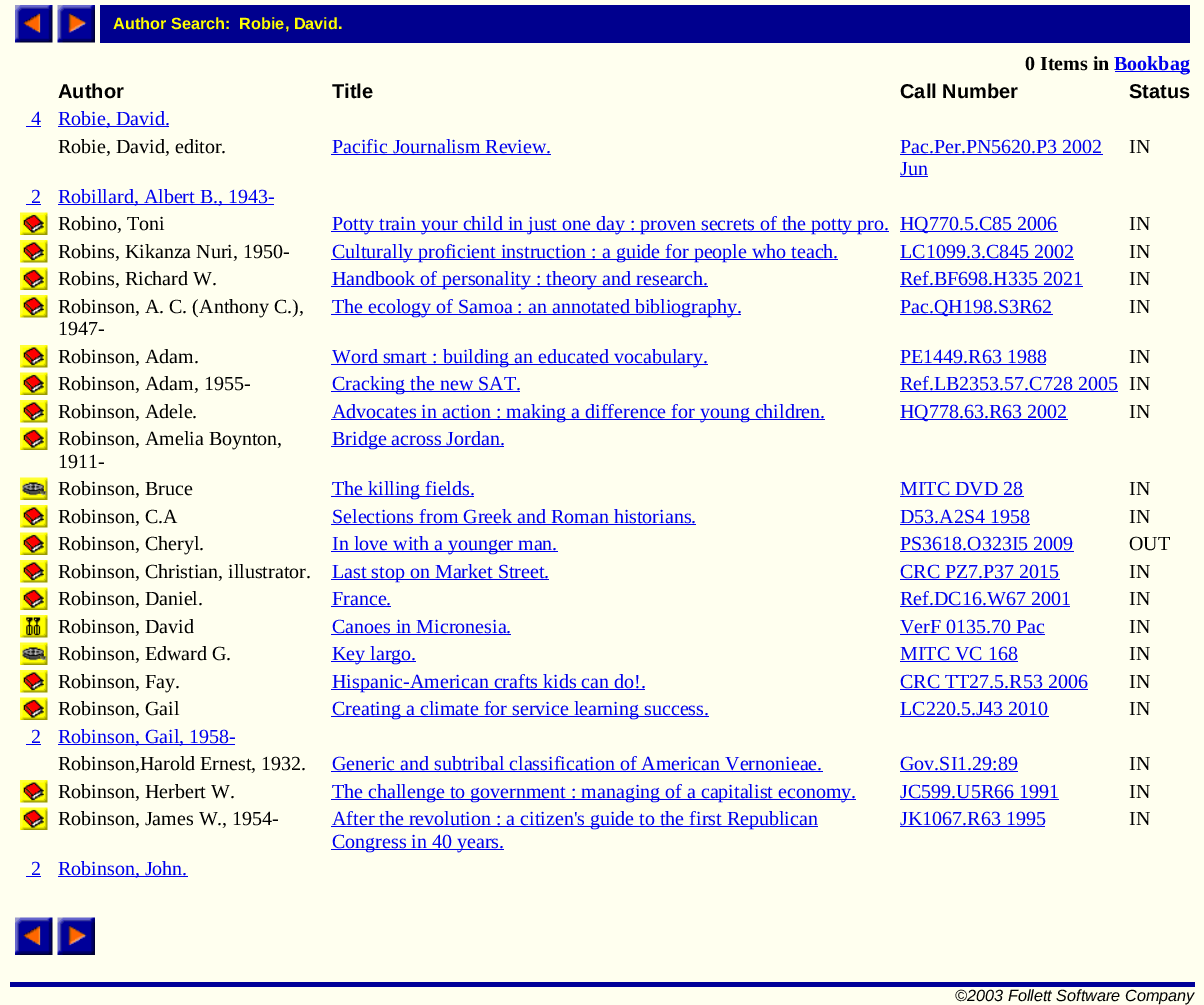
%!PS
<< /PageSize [1204 1005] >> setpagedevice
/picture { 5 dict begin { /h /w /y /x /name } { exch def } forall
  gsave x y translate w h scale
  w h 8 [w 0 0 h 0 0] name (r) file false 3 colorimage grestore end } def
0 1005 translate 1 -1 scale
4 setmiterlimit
1 1 0.937 setrgbcolor
0 0 1204 1005 rectfill
(img1.rgb) 15 5 38 38 picture
(img2.rgb) 57 5 38 38 picture
0 0 0.557 setrgbcolor
100 5 1090 38 rectfill
/LiberationSans-Bold [16.25 0 0 -16.25 0 0] selectfont
1 1 0 setrgbcolor
113 29 moveto (Author Search:  Robie, David.) show
/LiberationSerif-Bold [20 0 0 -20 0 0] selectfont
0 setgray
1025 70 moveto (0 Items in) show
0 0 0.933 setrgbcolor
1115 71 75 1 rectfill
1114 70 moveto (Bookbag) show
/LiberationSans-Bold [20 0 0 -20 0 0] selectfont
0 setgray
58 98 moveto (Author) show
332 98 moveto (Title) show
900 98 moveto (Call Number) show
1129 98 moveto (Status) show
/LiberationSerif-Regular [20 0 0 -20 0 0] selectfont
0 0 0.933 setrgbcolor
31 125 moveto (4) show
26 126 15 1 rectfill
58 126 111 1 rectfill
58 125 moveto (Robie, David.) show
0 setgray
58 153 moveto (Robie, David, editor.) show
0 0 0.933 setrgbcolor
332 153 moveto (Pacific Journalism Review.) show
331 154 220 1 rectfill
900 153 moveto (Pac.Per.PN5620.P3 2002) show
900 154 203 1 rectfill
900 175 moveto (Jun) show
900 176 28 1 rectfill
0 setgray
1129 153 moveto (IN) show
0 0 0.933 setrgbcolor
31 203 moveto (2) show
26 204 15 1 rectfill
58 204 216 1 rectfill
58 203 moveto (Robillard, Albert B., 1943-) show
(img3.rgb) 20 212 28 23 picture
0 setgray
58 230 moveto (Robino, Toni) show
0 0 0.933 setrgbcolor
331 231 558 1 rectfill
332 230 moveto (Potty train your child in just one day : proven secrets of the potty pro.) show
900 231 158 1 rectfill
900 230 moveto (HQ770.5.C85 2006) show
0 setgray
1129 230 moveto (IN) show
(img4.rgb) 20 240 28 23 picture
58 258 moveto (Robins, Kikanza Nuri, 1950-) show
0 0 0.933 setrgbcolor
331 259 507 1 rectfill
332 258 moveto (Culturally proficient instruction : a guide for people who teach.) show
900 258 moveto (LC1099.3.C845 2002) show
900 259 174 1 rectfill
0 setgray
1129 258 moveto (IN) show
(img3.rgb) 20 267 28 23 picture
58 285 moveto (Robins, Richard W.) show
0 0 0.933 setrgbcolor
331 286 377 1 rectfill
332 285 moveto (Handbook of personality : theory and research.) show
900 285 moveto (Ref.BF698.H335 2021) show
900 286 183 1 rectfill
0 setgray
1129 285 moveto (IN) show
(img4.rgb) 20 295 28 23 picture
58 313 moveto (Robinson, A. C. \(Anthony C.\),) show
58 335 moveto (1947-) show
0 0 0.933 setrgbcolor
331 314 410 1 rectfill
332 313 moveto (The ecology of Samoa : an annotated bibliography.) show
900 314 153 1 rectfill
900 313 moveto (Pac.QH198.S3R62) show
0 setgray
1129 313 moveto (IN) show
(img4.rgb) 20 345 28 23 picture
58 363 moveto (Robinson, Adam.) show
0 0 0.933 setrgbcolor
331 364 377 1 rectfill
332 363 moveto (Word smart : building an educated vocabulary.) show
900 363 moveto (PE1449.R63 1988) show
900 364 146 1 rectfill
0 setgray
1129 363 moveto (IN) show
(img3.rgb) 20 372 28 23 picture
58 390 moveto (Robinson, Adam, 1955-) show
0 0 0.933 setrgbcolor
331 391 189 1 rectfill
332 390 moveto (Cracking the new SAT.) show
900 390 moveto (Ref.LB2353.57.C728 2005) show
900 391 218 1 rectfill
0 setgray
1129 390 moveto (IN) show
(img4.rgb) 20 400 28 23 picture
58 418 moveto (Robinson, Adele.) show
0 0 0.933 setrgbcolor
331 419 494 1 rectfill
332 418 moveto (Advocates in action : making a difference for young children.) show
900 419 168 1 rectfill
900 418 moveto (HQ778.63.R63 2002) show
0 setgray
1129 418 moveto (IN) show
(img3.rgb) 20 427 28 23 picture
58 445 moveto (Robinson, Amelia Boynton,) show
58 468 moveto (1911-) show
0 0 0.933 setrgbcolor
331 446 173 1 rectfill
332 445 moveto (Bridge across Jordan.) show
(img5.rgb) 20 477 28 23 picture
0 setgray
58 495 moveto (Robinson, Bruce) show
0 0 0.933 setrgbcolor
331 496 143 1 rectfill
332 495 moveto (The killing fields.) show
900 495 moveto (MITC DVD 28) show
900 496 124 1 rectfill
0 setgray
1129 495 moveto (IN) show
(img4.rgb) 20 505 28 23 picture
58 523 moveto (Robinson, C.A) show
0 0 0.933 setrgbcolor
332 523 moveto (Selections from Greek and Roman historians.) show
331 524 365 1 rectfill
900 523 moveto (D53.A2S4 1958) show
900 524 130 1 rectfill
0 setgray
1129 523 moveto (IN) show
(img3.rgb) 20 532 28 23 picture
58 550 moveto (Robinson, Cheryl.) show
0 0 0.933 setrgbcolor
331 551 227 1 rectfill
332 550 moveto (In love with a younger man.) show
900 550 moveto (PS3618.O323I5 2009) show
900 551 174 1 rectfill
0 setgray
1129 550 moveto (OUT) show
(img4.rgb) 20 560 28 23 picture
58 578 moveto (Robinson, Christian, illustrator.) show
0 0 0.933 setrgbcolor
331 579 218 1 rectfill
332 578 moveto (Last stop on Market Street.) show
900 578 moveto (CRC PZ7.P37 2015) show
900 579 160 1 rectfill
0 setgray
1129 578 moveto (IN) show
(img6.rgb) 20 587 28 23 picture
58 605 moveto (Robinson, Daniel.) show
0 0 0.933 setrgbcolor
332 605 moveto (France.) show
331 606 60 1 rectfill
900 605 moveto (Ref.DC16.W67 2001) show
900 606 170 1 rectfill
0 setgray
1129 605 moveto (IN) show
(img7.rgb) 20 615 28 23 picture
58 633 moveto (Robinson, David) show
0 0 0.933 setrgbcolor
332 633 moveto (Canoes in Micronesia.) show
331 634 180 1 rectfill
900 633 moveto (VerF 0135.70 Pac) show
900 634 145 1 rectfill
0 setgray
1129 633 moveto (IN) show
(img5.rgb) 20 642 28 23 picture
58 660 moveto (Robinson, Edward G.) show
0 0 0.933 setrgbcolor
331 661 85 1 rectfill
332 660 moveto (Key largo.) show
900 660 moveto (MITC VC 168) show
900 661 118 1 rectfill
0 setgray
1129 660 moveto (IN) show
(img4.rgb) 20 670 28 23 picture
58 688 moveto (Robinson, Fay.) show
0 0 0.933 setrgbcolor
331 689 314 1 rectfill
332 688 moveto (Hispanic-American crafts kids can do!.) show
900 688 moveto (CRC TT27.5.R53 2006) show
900 689 188 1 rectfill
0 setgray
1129 688 moveto (IN) show
(img3.rgb) 20 697 28 23 picture
58 715 moveto (Robinson, Gail) show
0 0 0.933 setrgbcolor
331 716 378 1 rectfill
332 715 moveto (Creating a climate for service learning success.) show
900 715 moveto (LC220.5.J43 2010) show
900 716 149 1 rectfill
0 setgray
1129 715 moveto (IN) show
0 0 0.933 setrgbcolor
31 743 moveto (2) show
26 744 15 1 rectfill
58 744 177 1 rectfill
58 743 moveto (Robinson, Gail, 1958-) show
0 setgray
58 770 moveto (Robinson,Harold Ernest, 1932.) show
0 0 0.933 setrgbcolor
332 770 moveto (Generic and subtribal classification of American Vernonieae.) show
331 771 492 1 rectfill
900 770 moveto (Gov.SI1.29:89) show
900 771 118 1 rectfill
0 setgray
1129 770 moveto (IN) show
(img8.rgb) 20 780 28 23 picture
58 798 moveto (Robinson, Herbert W.) show
0 0 0.933 setrgbcolor
331 799 525 1 rectfill
332 798 moveto (The challenge to government : managing of a capitalist economy.) show
900 798 moveto (JC599.U5R66 1991) show
900 799 159 1 rectfill
0 setgray
1129 798 moveto (IN) show
(img3.rgb) 20 807 28 23 picture
58 825 moveto (Robinson, James W., 1954-) show
0 0 0.933 setrgbcolor
331 826 487 1 rectfill
332 825 moveto (After the revolution : a citizen's guide to the first Republican) show
331 849 173 1 rectfill
332 848 moveto (Congress in 40 years.) show
900 825 moveto (JK1067.R63 1995) show
900 826 145 1 rectfill
0 setgray
1129 825 moveto (IN) show
0 0 0.933 setrgbcolor
31 875 moveto (2) show
26 876 15 1 rectfill
58 876 130 1 rectfill
58 875 moveto (Robinson, John.) show
(img9.rgb) 15 917 38 38 picture
(img10.rgb) 57 917 38 38 picture
0 0 0.6 setrgbcolor
10 982 1185 5 rectfill
/LiberationSans-Italic [16.25 0 0 -16.25 0 0] selectfont
0 setgray
955 1001 moveto (©2003 Follett Software Company) show
showpage
